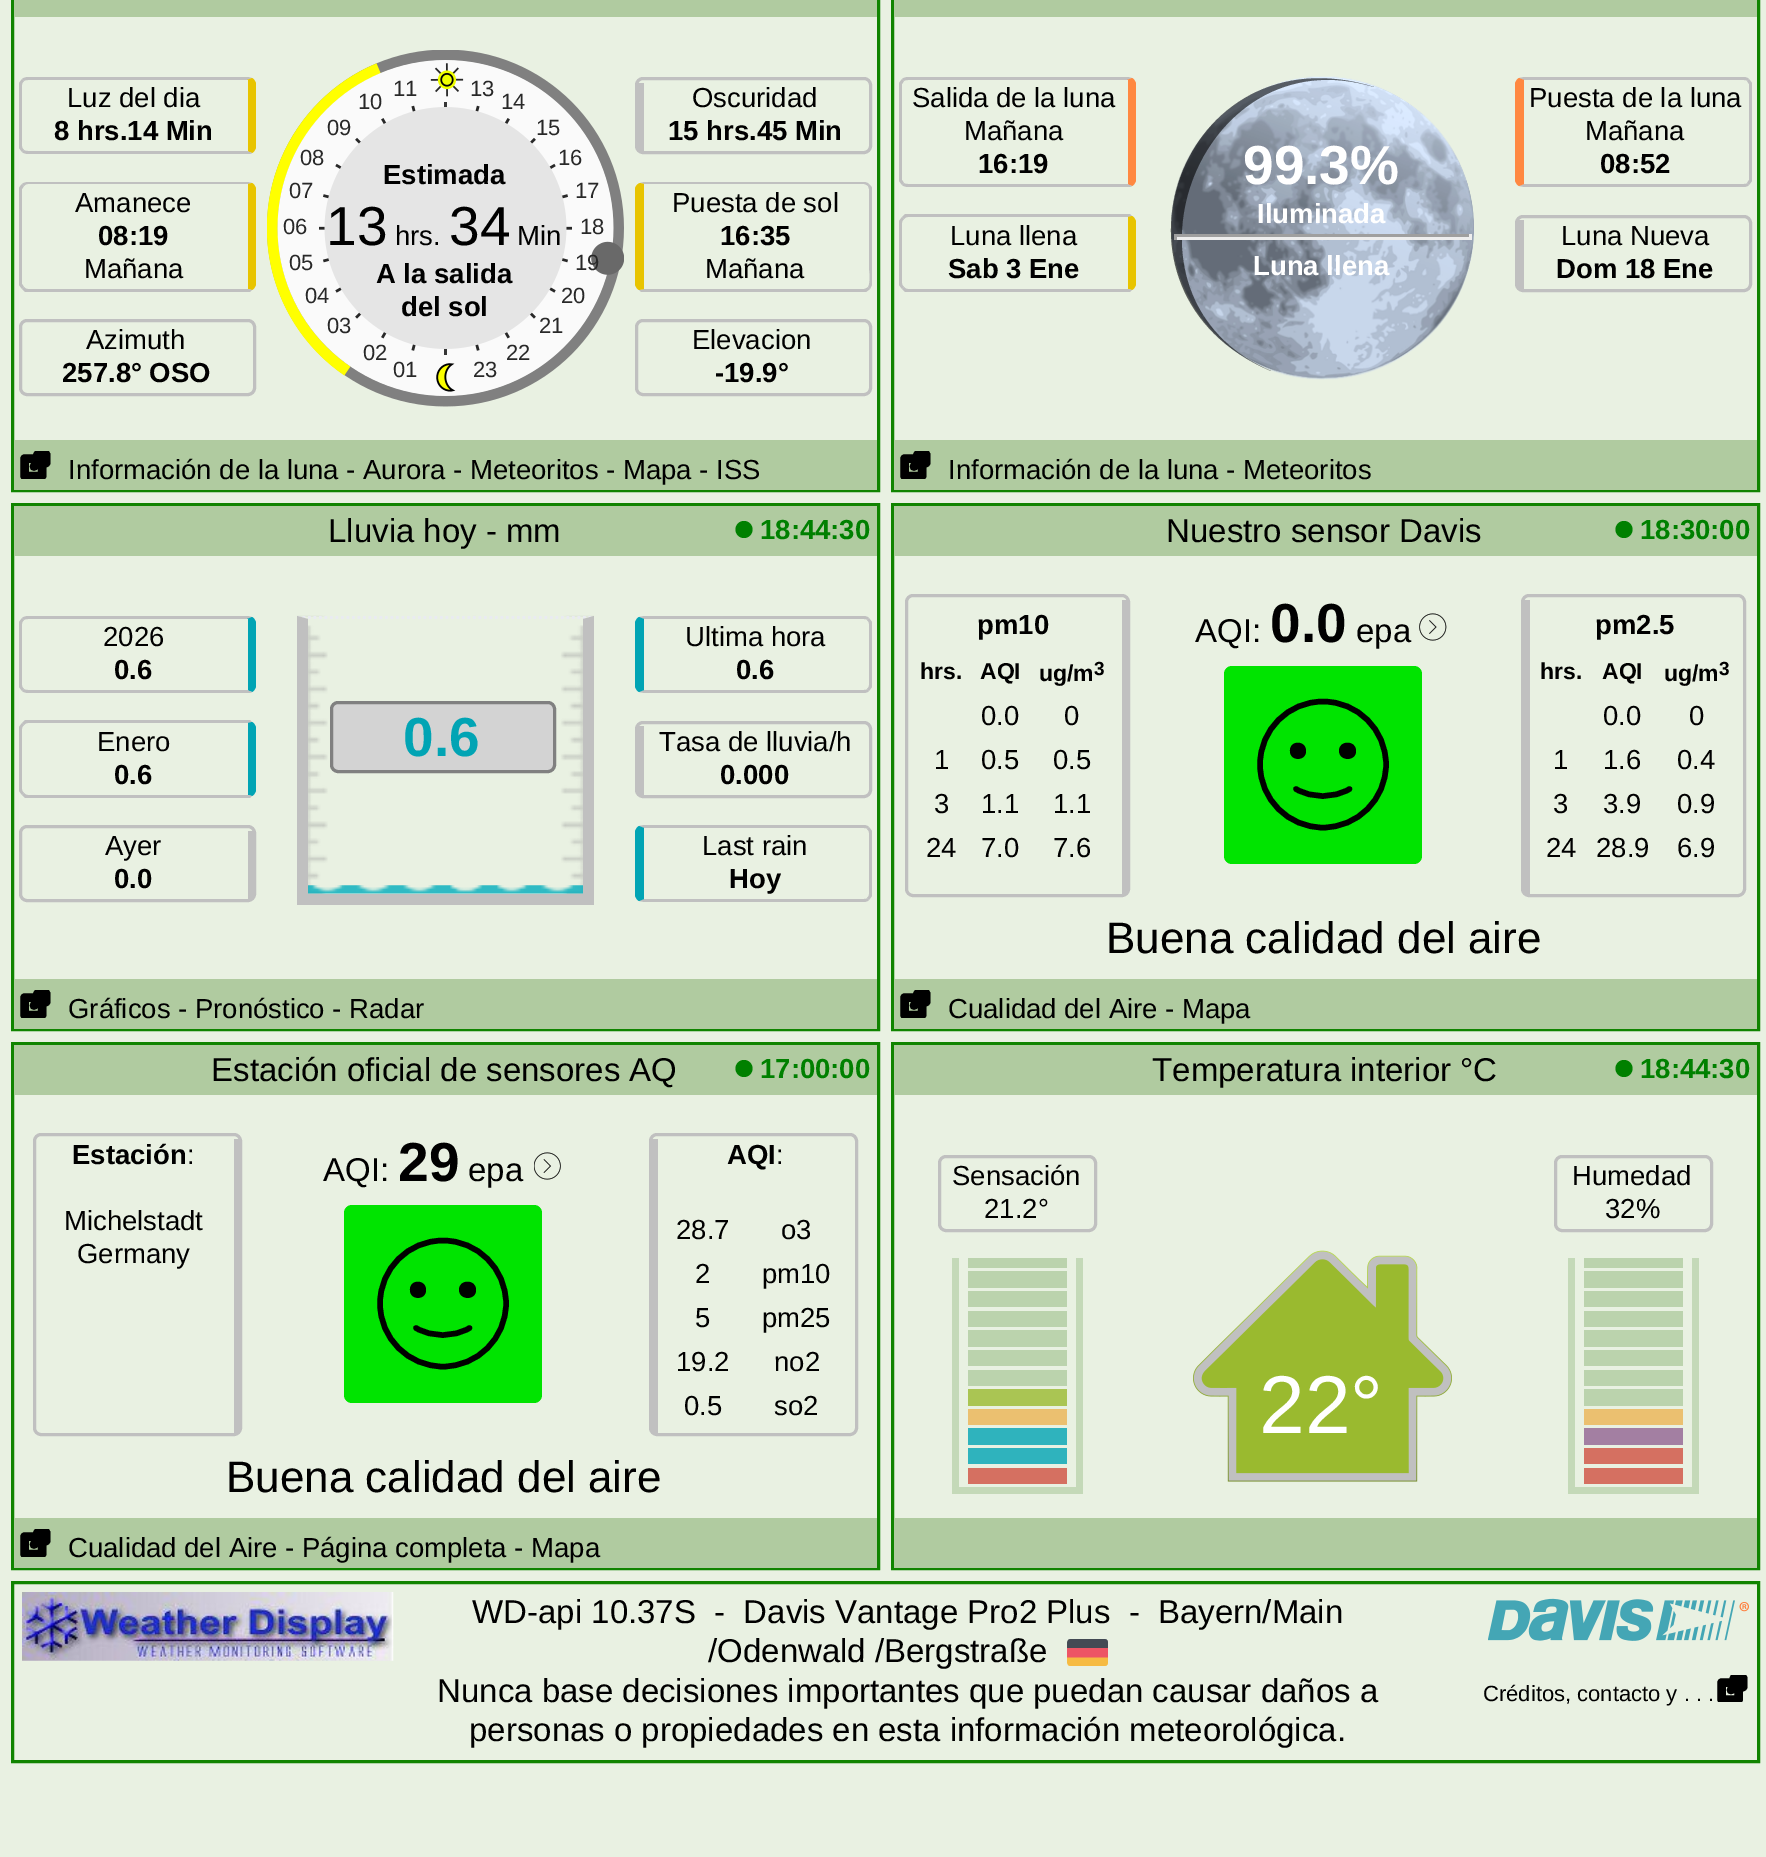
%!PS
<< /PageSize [1766 1857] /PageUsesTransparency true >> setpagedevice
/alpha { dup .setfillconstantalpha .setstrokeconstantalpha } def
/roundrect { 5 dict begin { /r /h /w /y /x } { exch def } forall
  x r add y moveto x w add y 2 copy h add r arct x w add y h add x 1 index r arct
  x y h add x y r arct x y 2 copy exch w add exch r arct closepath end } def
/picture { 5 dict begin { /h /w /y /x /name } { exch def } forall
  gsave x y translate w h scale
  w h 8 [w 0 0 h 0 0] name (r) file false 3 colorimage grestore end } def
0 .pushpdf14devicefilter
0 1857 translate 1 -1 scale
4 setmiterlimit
0.914 0.945 0.886 setrgbcolor
0 0 1766 1857 rectfill
0.063 0.518 0 setrgbcolor
3 setlinewidth
12.5 -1.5 866 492 rectstroke
0.69 0.796 0.627 setrgbcolor
14 0 863 17 rectfill
0.753 setgray
newpath 28 77 moveto 26 77 23 78 22 79 curveto 24 81 lineto 25 80 26 80 28 80 curveto 247 80 lineto 252 78 lineto 248 77 lineto closepath fill
0.91 0.769 0 setrgbcolor
newpath 256 148 moveto 255 150 254 152 252 153 curveto 247 151 lineto 248 151 lineto 248 80 lineto 247 80 lineto 252 78 lineto 254 79 255 81 256 83 curveto closepath fill
0.753 setgray
newpath 28 154 moveto 248 154 lineto 249 154 251 154 252 153 curveto 247 151 lineto 28 151 lineto 26 151 25 151 24 150 curveto 22 152 lineto 23 153 26 154 28 154 curveto closepath fill
newpath 19 83 moveto 22 79 lineto 24 81 lineto 23 82 22 83 22 85 curveto 22 146 lineto 22 148 23 149 24 150 curveto 22 152 lineto 19 148 lineto closepath fill
/LiberationSans-Regular [27.5 0 0 -27.5 0 0] selectfont
0 setgray
67 107 moveto (Luz del dia) show
/LiberationSans-Bold [27.5 0 0 -27.5 0 0] selectfont
54 140 moveto (8 hrs.14 Min) show
0.753 setgray
newpath 28 182 moveto 26 182 23 183 22 184 curveto 24 186 lineto 25 185 26 184 28 184 curveto 248 184 lineto 252 183 lineto 248 182 lineto closepath fill
0.91 0.769 0 setrgbcolor
newpath 252 183 moveto 254 184 255 186 256 188 curveto 256 285 lineto 255 287 254 289 252 290 curveto 248 289 lineto 248 184 lineto closepath fill
0.753 setgray
newpath 25 292 moveto 22 289 lineto 24 287 lineto 25 288 26 289 28 289 curveto 248 289 lineto 252 290 lineto 250 292 lineto closepath fill
newpath 19 188 moveto 20 186 21 185 22 184 curveto 24 186 lineto 22 189 lineto 22 284 lineto 24 287 lineto 22 289 lineto 19 285 lineto closepath fill
/LiberationSans-Regular [27.5 0 0 -27.5 0 0] selectfont
0 setgray
75 212 moveto (Amanece) show
/LiberationSans-Bold [27.5 0 0 -27.5 0 0] selectfont
98 245 moveto (08:19) show
/LiberationSans-Regular [27.5 0 0 -27.5 0 0] selectfont
84 278 moveto (Mañana) show
0.753 setgray
20.5 320.5 234 74 6.5 roundrect stroke
0 setgray
86 349 moveto (Azimuth) show
/LiberationSans-Bold [27.5 0 0 -27.5 0 0] selectfont
62 382 moveto (257.8° OSO) show
(img1.rgb) 267 50 357 357 picture
/LiberationSans-Regular [22 0 0 -22 0 0] selectfont
0.157 setgray
393 96 moveto (11) show
470 96 moveto (13) show
358 109 moveto (10) show
501 109 moveto (14) show
327 135 moveto (09) show
536 135 moveto (15) show
300 165 moveto (08) show
558 165 moveto (16) show
289 198 moveto (07) show
575 198 moveto (17) show
283 234 moveto (06) show
580 234 moveto (18) show
289 270 moveto (05) show
575 270 moveto (19) show
305 303 moveto (04) show
561 303 moveto (20) show
327 333 moveto (03) show
539 333 moveto (21) show
363 360 moveto (02) show
506 360 moveto (22) show
393 377 moveto (01) show
473 377 moveto (23) show
/LiberationSans-Bold [27.5 0 0 -27.5 0 0] selectfont
0 setgray
383 184 moveto (Estimada) show
/LiberationSans-Regular [55 0 0 -55 0 0] selectfont
326 245 moveto (13) show
/LiberationSans-Regular [27.5 0 0 -27.5 0 0] selectfont
395 245 moveto (hrs.) show
/LiberationSans-Regular [55 0 0 -55 0 0] selectfont
449 245 moveto (34) show
/LiberationSans-Regular [27.5 0 0 -27.5 0 0] selectfont
517 245 moveto (Min) show
/LiberationSans-Bold [27.5 0 0 -27.5 0 0] selectfont
376 283 moveto (A la salida) show
401 316 moveto (del sol) show
0.753 setgray
636.5 78.5 234 74 6.5 roundrect stroke
638 83 6 68 rectfill
/LiberationSans-Regular [27.5 0 0 -27.5 0 0] selectfont
0 setgray
692 107 moveto (Oscuridad) show
/LiberationSans-Bold [27.5 0 0 -27.5 0 0] selectfont
668 140 moveto (15 hrs.45 Min) show
0.753 setgray
newpath 644 182 moveto 640 183 lineto 644 184 lineto 864 184 lineto 865 184 867 185 868 186 curveto 869 184 lineto 868 183 866 182 864 182 curveto closepath fill
newpath 869 184 moveto 870 185 872 187 872 188 curveto 872 285 lineto 870 289 lineto 868 287 lineto 871 283 869 268 869 268 curveto 869 189 lineto 868 186 lineto closepath fill
newpath 641 292 moveto 639 290 lineto 644 289 lineto 864 289 lineto 865 289 867 288 868 287 curveto 870 289 lineto 866 292 lineto closepath fill
0.91 0.769 0 setrgbcolor
newpath 635 188 moveto 636 186 637 184 640 183 curveto 644 184 lineto 644 289 lineto 639 290 lineto 637 289 636 287 635 285 curveto closepath fill
/LiberationSans-Regular [27.5 0 0 -27.5 0 0] selectfont
0 setgray
672 212 moveto (Puesta de sol) show
/LiberationSans-Bold [27.5 0 0 -27.5 0 0] selectfont
720 245 moveto (16:35) show
/LiberationSans-Regular [27.5 0 0 -27.5 0 0] selectfont
705 278 moveto (Mañana) show
0.753 setgray
636.5 320.5 234 74 6.5 roundrect stroke
0 setgray
692 349 moveto (Elevacion) show
/LiberationSans-Bold [27.5 0 0 -27.5 0 0] selectfont
715 382 moveto (-19.9°) show
0.69 0.796 0.627 setrgbcolor
14 440 863 50 rectfill
/LiberationSans-Regular [27.5 0 0 -27.5 0 0] selectfont
0 setgray
68 479 moveto (Información de la luna - Aurora - Meteoritos - Mapa - ISS) show
gsave
19 451 33 28 rectclip
8.6 setlinewidth
1 setlinecap
1 setlinejoin
newpath 34 458.5 moveto 24.5 458.5 lineto 24.5 476 lineto 42 476 lineto 42 466.5 lineto 37.5 454.5 moveto 46 454.5 lineto 46 463 lineto 46 454.5 moveto 34 466.5 lineto stroke
grestore
0.063 0.518 0 setrgbcolor
892.5 -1.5 866 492 rectstroke
0.69 0.796 0.627 setrgbcolor
894 0 863 17 rectfill
0.753 setgray
newpath 908 77 moveto 906 77 903 78 902 79 curveto 904 81 lineto 905 80 906 80 908 80 curveto 1127 80 lineto 1132 78 lineto 1128 77 lineto closepath fill
1 0.533 0.255 setrgbcolor
newpath 1136 181 moveto 1135 183 1134 185 1132 186 curveto 1127 184 lineto 1128 184 lineto 1128 80 lineto 1127 80 lineto 1132 78 lineto 1134 79 1135 81 1136 83 curveto closepath fill
0.753 setgray
newpath 908 187 moveto 1128 187 lineto 1129 187 1131 187 1132 186 curveto 1127 184 lineto 908 184 lineto 906 184 905 184 904 183 curveto 902 185 lineto 903 186 906 187 908 187 curveto closepath fill
newpath 899 83 moveto 902 79 lineto 904 81 lineto 902 84 lineto 902 180 lineto 904 183 lineto 902 185 lineto 899 181 lineto closepath fill
0 setgray
912 107 moveto (Salida de la luna) show
964 140 moveto (Mañana) show
/LiberationSans-Bold [27.5 0 0 -27.5 0 0] selectfont
978 173 moveto (16:19) show
0.753 setgray
newpath 908 217 moveto 906 217 905 218 904 219 curveto 902 217 lineto 905 214 lineto 1130 214 lineto 1132 216 lineto 1128 217 lineto closepath fill
0.91 0.769 0 setrgbcolor
newpath 1136 285 moveto 1135 287 1134 289 1132 290 curveto 1128 289 lineto 1128 217 lineto 1132 216 lineto 1134 217 1135 219 1136 221 curveto closepath fill
0.753 setgray
newpath 905 292 moveto 902 289 lineto 904 287 lineto 905 288 906 289 908 289 curveto 1128 289 lineto 1132 290 lineto 1130 292 lineto closepath fill
newpath 899 221 moveto 902 217 lineto 904 219 lineto 903 220 902 221 902 223 curveto 902 283 lineto 902 285 903 286 904 287 curveto 902 289 lineto 899 285 lineto closepath fill
/LiberationSans-Regular [27.5 0 0 -27.5 0 0] selectfont
0 setgray
950 245 moveto (Luna llena) show
/LiberationSans-Bold [27.5 0 0 -27.5 0 0] selectfont
948 278 moveto (Sab 3 Ene) show
(img2.rgb) 1171 76 303 304 picture
0.6 alpha
newpath 1374 87 moveto 1197 33 1100 298 1271 371 curveto 1085 292 1181 27 1374 87 curveto fill
/LiberationSans-Bold [55 0 0 -55 0 0] selectfont
1 alpha
1 setgray
1243 184 moveto (99.3%) show
/LiberationSans-Bold [27.5 0 0 -27.5 0 0] selectfont
1257 223 moveto (Iluminada) show
0.624 setgray
1174 234 297 3 rectfill
0.933 setgray
1469 234 3 6 rectfill
1174 237 297 3 rectfill
0.624 setgray
1174 234 3 6 rectfill
1 setgray
1253 275 moveto (Luna llena) show
0.753 setgray
newpath 1524 77 moveto 1519 78 lineto 1524 80 lineto 1744 80 lineto 1745 80 1747 80 1747 81 curveto 1749 79 lineto 1748 78 1746 77 1744 77 curveto closepath fill
newpath 1752 181 moveto 1749 185 lineto 1747 183 lineto 1749 180 lineto 1749 84 lineto 1747 81 lineto 1749 79 lineto 1752 83 lineto closepath fill
newpath 1524 187 moveto 1744 187 lineto 1746 187 1748 186 1749 185 curveto 1747 183 lineto 1747 184 1745 184 1744 184 curveto 1524 184 lineto 1519 186 lineto closepath fill
1 0.533 0.255 setrgbcolor
newpath 1524 80 moveto 1524 184 lineto 1519 186 lineto 1517 185 1516 183 1515 181 curveto 1515 83 lineto 1516 81 1517 79 1519 78 curveto closepath fill
/LiberationSans-Regular [27.5 0 0 -27.5 0 0] selectfont
0 setgray
1529 107 moveto (Puesta de la luna) show
1585 140 moveto (Mañana) show
/LiberationSans-Bold [27.5 0 0 -27.5 0 0] selectfont
1600 173 moveto (08:52) show
0.753 setgray
1516.5 216.5 234 74 6.5 roundrect stroke
1518 220 6 69 rectfill
/LiberationSans-Regular [27.5 0 0 -27.5 0 0] selectfont
0 setgray
1561 245 moveto (Luna Nueva) show
/LiberationSans-Bold [27.5 0 0 -27.5 0 0] selectfont
1556 278 moveto (Dom 18 Ene) show
0.69 0.796 0.627 setrgbcolor
894 440 863 50 rectfill
/LiberationSans-Regular [27.5 0 0 -27.5 0 0] selectfont
0 setgray
948 479 moveto (Información de la luna - Meteoritos) show
gsave
899 451 33 28 rectclip
8.6 setlinewidth
1 setlinecap
1 setlinejoin
newpath 914 458.5 moveto 904.5 458.5 lineto 904.5 476 lineto 922 476 lineto 922 466.5 lineto 917.5 454.5 moveto 926 454.5 lineto 926 463 lineto 926 454.5 moveto 914 466.5 lineto stroke
grestore
0.063 0.518 0 setrgbcolor
12.5 504.5 866 525 rectstroke
0.69 0.796 0.627 setrgbcolor
14 506 863 50 rectfill
/LiberationSans-Regular [33 0 0 -33 0 0] selectfont
0 setgray
328 542 moveto (Lluvia hoy - mm) show
/LiberationSans-Bold [27.5 0 0 -27.5 0 0] selectfont
0 0.502 0 setrgbcolor
760 539 moveto (18:44:30) show
newpath 744 529.5 8.5 0 360 arc closepath fill
0.753 setgray
newpath 28 616 moveto 26 616 23 617 22 618 curveto 24 620 lineto 25 619 26 619 28 619 curveto 247 619 lineto 252 617 lineto 248 616 lineto closepath fill
0.004 0.643 0.706 setrgbcolor
newpath 256 687 moveto 255 689 254 691 252 692 curveto 247 690 lineto 248 690 lineto 248 619 lineto 247 619 lineto 252 617 lineto 254 618 255 620 256 622 curveto closepath fill
0.753 setgray
newpath 28 693 moveto 248 693 lineto 249 693 251 693 252 692 curveto 247 690 lineto 28 690 lineto 26 690 25 690 24 689 curveto 22 691 lineto 23 692 26 693 28 693 curveto closepath fill
newpath 19 622 moveto 22 618 lineto 24 620 lineto 23 621 22 622 22 624 curveto 22 685 lineto 22 687 23 688 24 689 curveto 22 691 lineto 19 687 lineto closepath fill
/LiberationSans-Regular [27.5 0 0 -27.5 0 0] selectfont
0 setgray
103 646 moveto (2026) show
/LiberationSans-Bold [27.5 0 0 -27.5 0 0] selectfont
114 679 moveto (0.6) show
0.753 setgray
newpath 28 723 moveto 26 723 25 724 24 725 curveto 22 723 lineto 25 720 lineto 250 720 lineto 252 722 lineto 248 723 lineto closepath fill
0.004 0.643 0.706 setrgbcolor
newpath 256 791 moveto 255 793 254 795 252 796 curveto 248 795 lineto 248 723 lineto 252 722 lineto 254 723 255 725 256 727 curveto closepath fill
0.753 setgray
newpath 25 798 moveto 22 795 lineto 24 793 lineto 25 794 26 795 28 795 curveto 248 795 lineto 252 796 lineto 250 798 lineto closepath fill
newpath 19 727 moveto 22 723 lineto 24 725 lineto 23 726 22 727 22 729 curveto 22 789 lineto 22 791 23 792 24 793 curveto 22 795 lineto 19 791 lineto closepath fill
/LiberationSans-Regular [27.5 0 0 -27.5 0 0] selectfont
0 setgray
97 751 moveto (Enero) show
/LiberationSans-Bold [27.5 0 0 -27.5 0 0] selectfont
114 784 moveto (0.6) show
0.753 setgray
20.5 826.5 234 74 6.5 roundrect stroke
248 831 5 68 rectfill
/LiberationSans-Regular [27.5 0 0 -27.5 0 0] selectfont
0 setgray
105 855 moveto (Ayer) show
/LiberationSans-Bold [27.5 0 0 -27.5 0 0] selectfont
114 888 moveto (0.0) show
(img3.rgb) 297 615 297 279 picture
0.914 0.922 0.945 setrgbcolor
2.8 setlinewidth
[2.75 2.75] 0 setdash
newpath 297 617.5 moveto 594 617.5 lineto stroke
0.753 setgray
newpath 594 616 moveto 594 905 lineto 583 894 lineto 583 619 lineto closepath fill
297 894 297 11 rectfill
newpath 297 905 moveto 297 616 lineto 308 619 lineto 308 894 lineto closepath fill
0.827 setgray
331.5 702.5 223 69 6.5 roundrect gsave fill grestore
0.502 setgray
3 setlinewidth
[] 0 setdash
stroke
/LiberationSans-Bold [55 0 0 -55 0 0] selectfont
0.004 0.643 0.706 setrgbcolor
403 756 moveto (0.6) show
(img4.rgb) 308 885 275 9 picture
0.753 setgray
newpath 644 616 moveto 639 617 lineto 644 619 lineto 864 619 lineto 865 619 867 619 867 620 curveto 869 618 lineto 868 617 866 616 864 616 curveto closepath fill
newpath 872 687 moveto 869 691 lineto 867 689 lineto 868 688 869 687 869 685 curveto 869 624 lineto 869 622 868 621 867 620 curveto 869 618 lineto 872 622 lineto closepath fill
newpath 644 693 moveto 864 693 lineto 866 693 868 692 869 691 curveto 867 689 lineto 867 690 865 690 864 690 curveto 644 690 lineto 639 692 lineto closepath fill
0.004 0.643 0.706 setrgbcolor
newpath 644 619 moveto 644 690 lineto 639 692 lineto 637 691 636 689 635 687 curveto 635 622 lineto 636 620 637 618 639 617 curveto closepath fill
/LiberationSans-Regular [27.5 0 0 -27.5 0 0] selectfont
0 setgray
685 646 moveto (Ultima hora) show
/LiberationSans-Bold [27.5 0 0 -27.5 0 0] selectfont
736 679 moveto (0.6) show
0.753 setgray
636.5 722.5 234 74 6.5 roundrect stroke
638 726 6 69 rectfill
/LiberationSans-Regular [27.5 0 0 -27.5 0 0] selectfont
0 setgray
659 751 moveto (Tasa de lluvia/h) show
/LiberationSans-Bold [27.5 0 0 -27.5 0 0] selectfont
720 784 moveto (0.000) show
0.753 setgray
newpath 644 825 moveto 639 826 lineto 644 828 lineto 864 828 lineto 865 828 867 828 867 829 curveto 869 827 lineto 868 826 866 825 864 825 curveto closepath fill
newpath 872 896 moveto 869 900 lineto 867 898 lineto 868 897 869 896 869 894 curveto 869 833 lineto 869 831 868 830 867 829 curveto 869 827 lineto 872 831 lineto closepath fill
newpath 644 902 moveto 864 902 lineto 866 902 868 901 869 900 curveto 867 898 lineto 867 899 865 899 864 899 curveto 644 899 lineto 639 901 lineto closepath fill
0.004 0.643 0.706 setrgbcolor
newpath 644 828 moveto 644 899 lineto 639 901 lineto 637 900 636 898 635 896 curveto 635 831 lineto 636 829 637 827 639 826 curveto closepath fill
/LiberationSans-Regular [27.5 0 0 -27.5 0 0] selectfont
0 setgray
702 855 moveto (Last rain) show
/LiberationSans-Bold [27.5 0 0 -27.5 0 0] selectfont
729 888 moveto (Hoy) show
0.69 0.796 0.627 setrgbcolor
14 979 863 50 rectfill
/LiberationSans-Regular [27.5 0 0 -27.5 0 0] selectfont
0 setgray
68 1018 moveto (Gráficos - Pronóstico - Radar) show
gsave
19 990 33 28 rectclip
8.6 setlinewidth
1 setlinecap
1 setlinejoin
newpath 34 997.5 moveto 24.5 997.5 lineto 24.5 1015 lineto 42 1015 lineto 42 1005.5 lineto 37.5 993.5 moveto 46 993.5 lineto 46 1002 lineto 46 993.5 moveto 34 1005.5 lineto stroke
grestore
0.063 0.518 0 setrgbcolor
892.5 504.5 866 525 rectstroke
0.69 0.796 0.627 setrgbcolor
894 506 863 50 rectfill
/LiberationSans-Regular [33 0 0 -33 0 0] selectfont
0 setgray
1166 542 moveto (Nuestro sensor Davis) show
/LiberationSans-Bold [27.5 0 0 -27.5 0 0] selectfont
0 0.502 0 setrgbcolor
1640 539 moveto (18:30:00) show
newpath 1624 529.5 8.5 0 360 arc closepath fill
0.753 setgray
906.5 595.5 222 300 6.5 roundrect stroke
1122 600 5 294 rectfill
0 setgray
977 634 moveto (pm10) show
/LiberationSans-Bold [23 0 0 -23 0 0] selectfont
920 679 moveto (hrs.) show
980 679 moveto (AQI) show
1039 681 moveto (ug/m) show
/LiberationSans-Bold [19 0 0 -19 0 0] selectfont
1094 675 moveto (3) show
/LiberationSans-Regular [27.5 0 0 -27.5 0 0] selectfont
981 725 moveto (0.0) show
1064 725 moveto (0) show
934 769 moveto (1) show
981 769 moveto (0.5) show
1053 769 moveto (0.5) show
934 813 moveto (3) show
981 813 moveto (1.1) show
1053 813 moveto (1.1) show
926 857 moveto (24) show
981 857 moveto (7.0) show
1053 857 moveto (7.6) show
/LiberationSans-Regular [33 0 0 -33 0 0] selectfont
1195 642 moveto (AQI:) show
/LiberationSans-Bold [55 0 0 -55 0 0] selectfont
1270 642 moveto (0.0) show
/LiberationSans-Regular [33 0 0 -33 0 0] selectfont
1356 642 moveto (epa) show
(img5.rgb) 1419 613 28 28 picture
0 0.894 0 setrgbcolor
1224 666 198 198 8 roundrect fill
0 setgray
5.5 setlinewidth
newpath 1323 764.5 63 0 360 arc closepath stroke
newpath 1306 751 moveto 1306 761.5 1290 761.5 1290 751 curveto 1289.5 740 1306 740 1306 751 curveto fill
newpath 1356 751 moveto 1356 761.5 1339.5 761.5 1339 751 curveto 1339 740 1356 740 1356 751 curveto fill
1 setlinecap
1 setlinejoin
newpath 1349.5 789 moveto 1333 798.5 1312.5 798.5 1296 789 curveto stroke
0.753 setgray
3 setlinewidth
0 setlinecap
0 setlinejoin
1522.5 595.5 222 300 6.5 roundrect stroke
1524 600 6 294 rectfill
/LiberationSans-Bold [27.5 0 0 -27.5 0 0] selectfont
0 setgray
1595 634 moveto (pm2.5) show
/LiberationSans-Bold [23 0 0 -23 0 0] selectfont
1540 679 moveto (hrs.) show
1602 679 moveto (AQI) show
1664 681 moveto (ug/m) show
/LiberationSans-Bold [19 0 0 -19 0 0] selectfont
1719 675 moveto (3) show
/LiberationSans-Regular [27.5 0 0 -27.5 0 0] selectfont
1603 725 moveto (0.0) show
1689 725 moveto (0) show
1553 769 moveto (1) show
1603 769 moveto (1.6) show
1677 769 moveto (0.4) show
1553 813 moveto (3) show
1603 813 moveto (3.9) show
1677 813 moveto (0.9) show
1546 857 moveto (24) show
1596 857 moveto (28.9) show
1677 857 moveto (6.9) show
/LiberationSans-Regular [44 0 0 -44 0 0] selectfont
1106 953 moveto (Buena calidad del aire) show
0.69 0.796 0.627 setrgbcolor
894 979 863 50 rectfill
/LiberationSans-Regular [27.5 0 0 -27.5 0 0] selectfont
0 setgray
948 1018 moveto (Cualidad del Aire - Mapa) show
gsave
899 990 33 28 rectclip
8.6 setlinewidth
1 setlinecap
1 setlinejoin
newpath 914 997.5 moveto 904.5 997.5 lineto 904.5 1015 lineto 922 1015 lineto 922 1005.5 lineto 917.5 993.5 moveto 926 993.5 lineto 926 1002 lineto 926 993.5 moveto 914 1005.5 lineto stroke
grestore
0.063 0.518 0 setrgbcolor
12.5 1043.5 866 525 rectstroke
0.69 0.796 0.627 setrgbcolor
14 1045 863 50 rectfill
/LiberationSans-Regular [33 0 0 -33 0 0] selectfont
0 setgray
211 1081 moveto (Estación oficial de sensores AQ) show
/LiberationSans-Bold [27.5 0 0 -27.5 0 0] selectfont
0 0.502 0 setrgbcolor
760 1078 moveto (17:00:00) show
newpath 744 1068.5 8.5 0 360 arc closepath fill
0.753 setgray
34.5 1134.5 206 300 6.5 roundrect stroke
234 1139 5 294 rectfill
0 setgray
72 1164 moveto (Estación) show
/LiberationSans-Regular [27.5 0 0 -27.5 0 0] selectfont
187 1164 moveto (:) show
64 1230 moveto (Michelstadt) show
77 1263 moveto (Germany) show
/LiberationSans-Regular [33 0 0 -33 0 0] selectfont
323 1181 moveto (AQI:) show
/LiberationSans-Bold [55 0 0 -55 0 0] selectfont
398 1181 moveto (29) show
/LiberationSans-Regular [33 0 0 -33 0 0] selectfont
468 1181 moveto (epa) show
(img6.rgb) 534 1152 27 28 picture
0 0.894 0 setrgbcolor
344 1205 198 198 8 roundrect fill
0 setgray
5.5 setlinewidth
newpath 443 1303.5 63 0 360 arc closepath stroke
newpath 426 1290 moveto 426 1300.5 410 1300.5 410 1290 curveto 409.5 1279 426 1279 426 1290 curveto fill
newpath 476 1290 moveto 476 1300.5 459.5 1300.5 459 1290 curveto 459 1279 476 1279 476 1290 curveto fill
1 setlinecap
1 setlinejoin
newpath 469.5 1328 moveto 453 1337.5 432.5 1337.5 416 1328 curveto stroke
0.753 setgray
3 setlinewidth
0 setlinecap
0 setlinejoin
650.5 1134.5 206 300 6.5 roundrect stroke
652 1139 6 294 rectfill
/LiberationSans-Bold [27.5 0 0 -27.5 0 0] selectfont
0 setgray
727 1164 moveto (AQI) show
/LiberationSans-Regular [27.5 0 0 -27.5 0 0] selectfont
776 1164 moveto (:) show
676 1239 moveto (28.7) show
781 1239 moveto (o3) show
695 1283 moveto (2) show
762 1283 moveto (pm10) show
695 1327 moveto (5) show
762 1327 moveto (pm25) show
676 1371 moveto (19.2) show
774 1371 moveto (no2) show
684 1415 moveto (0.5) show
774 1415 moveto (so2) show
/LiberationSans-Regular [44 0 0 -44 0 0] selectfont
226 1492 moveto (Buena calidad del aire) show
0.69 0.796 0.627 setrgbcolor
14 1518 863 50 rectfill
/LiberationSans-Regular [27.5 0 0 -27.5 0 0] selectfont
0 setgray
68 1557 moveto (Cualidad del Aire - Página completa - Mapa) show
gsave
19 1529 33 28 rectclip
8.6 setlinewidth
1 setlinecap
1 setlinejoin
newpath 34 1536.5 moveto 24.5 1536.5 lineto 24.5 1554 lineto 42 1554 lineto 42 1544.5 lineto 37.5 1532.5 moveto 46 1532.5 lineto 46 1541 lineto 46 1532.5 moveto 34 1544.5 lineto stroke
grestore
0.063 0.518 0 setrgbcolor
892.5 1043.5 866 525 rectstroke
0.69 0.796 0.627 setrgbcolor
894 1045 863 50 rectfill
/LiberationSans-Regular [33 0 0 -33 0 0] selectfont
0 setgray
1152 1081 moveto (Temperatura interior °C) show
/LiberationSans-Bold [27.5 0 0 -27.5 0 0] selectfont
0 0.502 0 setrgbcolor
1640 1078 moveto (18:44:30) show
newpath 1624 1068.5 8.5 0 360 arc closepath fill
0.753 setgray
939.5 1156.5 156 74 6.5 roundrect stroke
/LiberationSans-Regular [27.5 0 0 -27.5 0 0] selectfont
0 setgray
952 1185 moveto (Sensación) show
984 1218 moveto (21.2°) show
0.769 0.851 0.722 setrgbcolor
newpath 952 1258 moveto 959 1258 lineto 959 1487 lineto 1076 1487 lineto 1076 1258 lineto 1083 1258 lineto 1083 1494 lineto 952 1494 lineto closepath fill
0.733 0.827 0.678 setrgbcolor
968 1258 99 10 rectfill
968 1271 99 17 rectfill
968 1291 99 16 rectfill
968 1311 99 16 rectfill
968 1330 99 17 rectfill
968 1350 99 16 rectfill
968 1370 99 16 rectfill
0.667 0.773 0.325 setrgbcolor
968 1389 99 17 rectfill
0.922 0.753 0.439 setrgbcolor
968 1409 99 16 rectfill
0.184 0.702 0.741 setrgbcolor
968 1428 99 17 rectfill
968 1448 99 16 rectfill
0.835 0.439 0.38 setrgbcolor
968 1468 99 16 rectfill
0.753 setgray
1555.5 1156.5 156 74 6.5 roundrect stroke
0 setgray
1572 1185 moveto (Humedad) show
1605 1218 moveto (32%) show
0.769 0.851 0.722 setrgbcolor
newpath 1568 1258 moveto 1575 1258 lineto 1575 1487 lineto 1692 1487 lineto 1692 1258 lineto 1699 1258 lineto 1699 1494 lineto 1568 1494 lineto closepath fill
0.733 0.827 0.678 setrgbcolor
1584 1258 99 10 rectfill
1584 1271 99 17 rectfill
1584 1291 99 16 rectfill
1584 1311 99 16 rectfill
1584 1330 99 17 rectfill
1584 1350 99 16 rectfill
1584 1370 99 16 rectfill
1584 1389 99 17 rectfill
0.922 0.753 0.439 setrgbcolor
1584 1409 99 16 rectfill
0.639 0.498 0.635 setrgbcolor
1584 1428 99 17 rectfill
0.835 0.439 0.38 setrgbcolor
1584 1448 99 16 rectfill
1584 1468 99 16 rectfill
(img7.rgb) 1193 1250 259 232 picture
/LiberationSans-Regular [82 0 0 -82 0 0] selectfont
1 setgray
1259 1433 moveto (22°) show
0.69 0.796 0.627 setrgbcolor
894 1518 863 50 rectfill
0.063 0.518 0 setrgbcolor
12.5 1582.5 1746 179 rectstroke
(img8.rgb) 22 1592 372 69 picture
/LiberationSans-Regular [33 0 0 -33 0 0] selectfont
0 setgray
472 1623 moveto (WD-api 10.37S  -  Davis Vantage Pro2 Plus  -  Bayern/Main) show
708 1662 moveto (/Odenwald /Bergstraße) show
(img9.rgb) 1067 1639 41 27 picture
437 1702 moveto (Nunca base decisiones importantes que puedan causar daños a) show
469 1741 moveto (personas o propiedades en esta información meteorológica.) show
(img10.rgb) 1488 1598 261 43 picture
/LiberationSans-Regular [22 0 0 -22 0 0] selectfont
1483 1701 moveto (Créditos, contacto y . . .) show
gsave
1716 1675 33 27 rectclip
8.6 setlinewidth
1 setlinecap
1 setlinejoin
newpath 1731 1682.5 moveto 1721.5 1682.5 lineto 1721.5 1699.5 lineto 1738.5 1699.5 lineto 1738.5 1690 lineto 1734 1678 moveto 1743 1678 lineto 1743 1687 lineto 1743 1678 moveto 1731 1690 lineto stroke
grestore
.poppdf14devicefilter showpage
